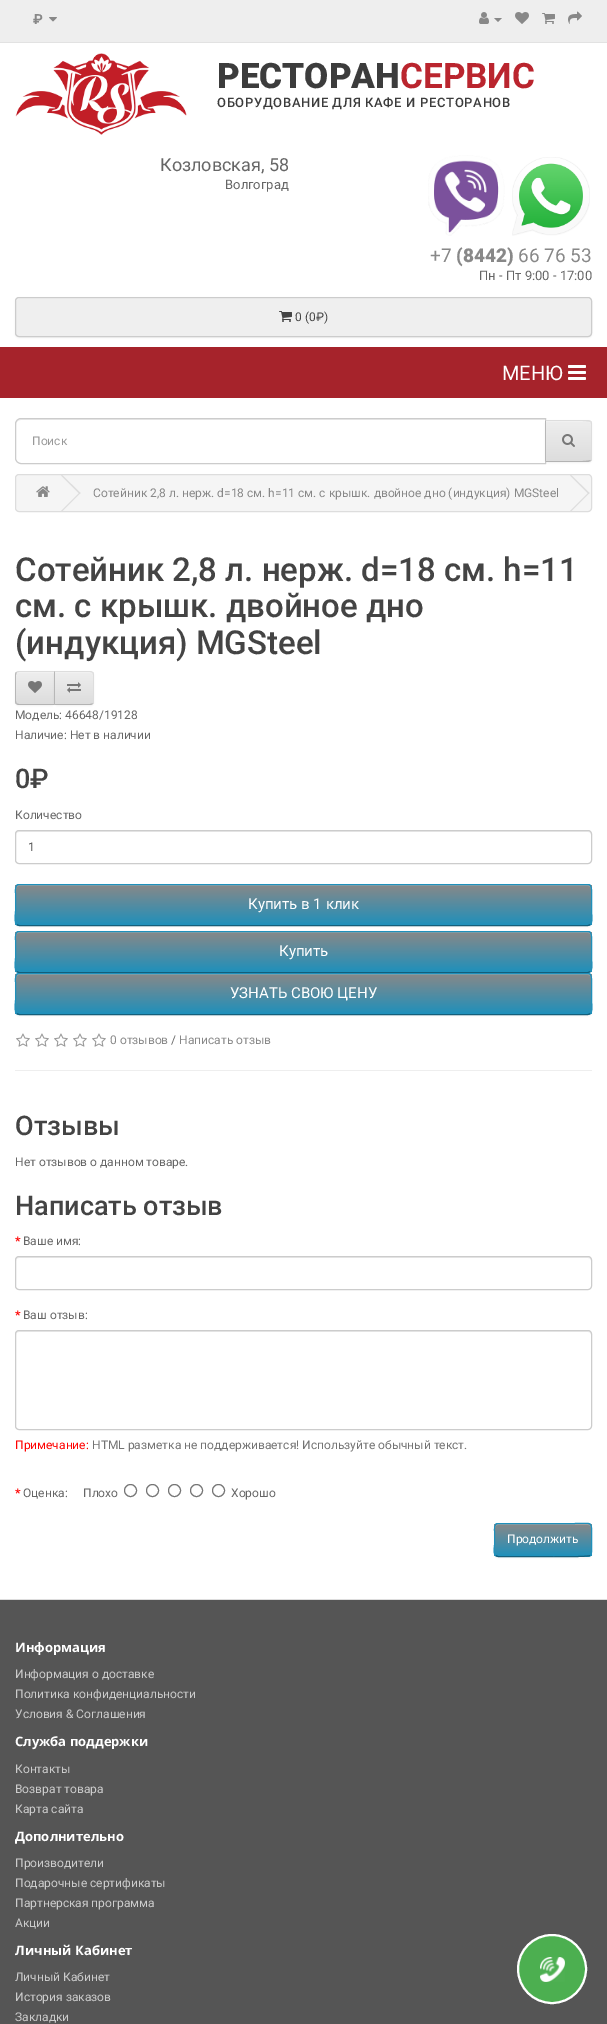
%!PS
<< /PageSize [607 2024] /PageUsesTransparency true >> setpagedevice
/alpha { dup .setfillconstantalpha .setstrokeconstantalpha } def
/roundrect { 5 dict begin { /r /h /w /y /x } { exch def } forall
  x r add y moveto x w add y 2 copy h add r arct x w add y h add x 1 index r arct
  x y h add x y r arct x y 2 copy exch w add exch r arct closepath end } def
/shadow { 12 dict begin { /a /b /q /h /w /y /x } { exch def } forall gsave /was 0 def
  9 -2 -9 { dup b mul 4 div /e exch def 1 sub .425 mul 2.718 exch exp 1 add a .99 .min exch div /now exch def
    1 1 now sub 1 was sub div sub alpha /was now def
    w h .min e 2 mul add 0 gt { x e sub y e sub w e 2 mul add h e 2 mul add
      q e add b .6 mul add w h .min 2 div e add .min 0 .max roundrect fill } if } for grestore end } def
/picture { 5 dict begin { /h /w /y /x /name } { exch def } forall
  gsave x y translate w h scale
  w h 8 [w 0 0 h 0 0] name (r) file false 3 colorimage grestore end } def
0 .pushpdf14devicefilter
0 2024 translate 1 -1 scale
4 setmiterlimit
1 setgray
0 0 607 2024 rectfill
0.933 setgray
0 0 607 42 rectfill
0.886 setgray
0 42 607 1 rectfill
/Roboto-Bold [14 0 0 -14 0 0] selectfont
0.533 setgray
33 24 moveto (₽) show
(img1.rgb) 49 17 8 5 picture
(img2.rgb) 479 12 10 12 picture
newpath 494 18 moveto 502 18 lineto 498 22 lineto closepath fill
(img3.rgb) 515 12 14 12 picture
(img4.rgb) 542 13 13 11 picture
(img5.rgb) 568 11 14 13 picture
(img6.rgb) 15 53 172 82 picture
/Roboto-Black [35 0 0 -35 0 0] selectfont
0.235 setgray
217 88 moveto (РЕСТОРАН) show
/Roboto-Bold [35 0 0 -35 0 0] selectfont
0.729 0.145 0.18 setrgbcolor
400 88 moveto (СЕРВИС) show
/Roboto-Medium [13 0 0 -13 0 0] selectfont
0.235 setgray
217 107 moveto 0.65 0 (ОБОРУДОВАНИЕ ДЛЯ КАФЕ И РЕСТОРАНОВ) ashow
/Roboto-Regular [18 0 0 -18 0 0] selectfont
0.4 setgray
160 171 moveto (Козловская, 58) show
/Roboto-Regular [13 0 0 -13 0 0] selectfont
225 189 moveto (Волгоград) show
(img7.rgb) 428 155 77 81 picture
(img8.rgb) 512 157 78 79 picture
/Roboto-Regular [19 0 0 -19 0 0] selectfont
0.533 setgray
430 262 moveto (+7) show
/Roboto-Black [19 0 0 -19 0 0] selectfont
456 262 moveto (\(8442\)) show
/Roboto-Regular [19 0 0 -19 0 0] selectfont
518 262 moveto (66 76 53) show
/Roboto-Regular [13 0 0 -13 0 0] selectfont
0.4 setgray
479 280 moveto (Пн - Пт 9:00 - 17:00) show
0 setgray
15 298 577 40 4 1 0.05 shadow
0.937 setgray
15 297 577 40 4 roundrect fill
0.949 setgray
newpath 19 299 moveto 588 299 lineto 590 299 591 300 591 302 curveto 591 301 lineto 591 299 590 298 588 298 curveto 19 298 lineto 17 298 16 299 16 301 curveto 16 302 lineto 16 300 17 299 19 299 curveto closepath fill
0.8 setgray
15.5 297.5 576 39 3.5 roundrect stroke
(img9.rgb) 279 311 13 11 picture
/Roboto-Regular [12 0 0 -12 0 0] selectfont
0.267 setgray
295 321 moveto (0 \(0₽\)) show
0.651 0.137 0.169 setrgbcolor
0 347 607 51 rectfill
/Roboto-Regular [20 0 0 -20 0 0] selectfont
1 setgray
502 380 moveto (МЕНЮ) show
(img10.rgb) 568 365 18 15 picture
0.925 setgray
newpath 21 420 moveto 545 420 lineto 545 419 lineto 21 419 lineto 18 419 16 422 16 425 curveto 16 422 18 420 21 420 curveto closepath fill
0.8 setgray
newpath 21 418.5 moveto 545.5 418.5 lineto 545.5 463.5 lineto 21 463.5 lineto 18 463.5 15.5 461 15.5 458 curveto 15.5 424 lineto 15.5 421 18 418.5 21 418.5 curveto closepath stroke
/Roboto-Regular [12 0 0 -12 0 0] selectfont
0.6 setgray
32 445 moveto (Поиск) show
0 setgray
545 421 47 42 4 1 0.05 shadow
0.906 setgray
newpath 545 420 moveto 588 420 lineto 590 420 592 422 592 424 curveto 592 458 lineto 592 460 590 462 588 462 curveto 545 462 lineto closepath fill
gsave
newpath 545 420 moveto 588 420 lineto 590 420 592 422 592 424 curveto 592 458 lineto 592 460 590 462 588 462 curveto 545 462 lineto closepath clip newpath
gsave newpath 546 421 moveto 592 421 lineto 592 461 lineto 546 461 lineto closepath clip newpath
<< /ShadingType 2 /ColorSpace /DeviceRGB /Coords [569 421 569 461] /Extend [true true] /Function << /FunctionType 2 /Domain [0 1] /C0 [0.933 0.933 0.933] /C1 [0.867 0.867 0.867] /N 1 >> >> shfill grestore
grestore
0.945 setgray
newpath 546 422 moveto 588 422 lineto 590 422 591 423 591 425 curveto 591 424 lineto 591 422 590 421 588 421 curveto 546 421 lineto closepath fill
0.867 setgray
newpath 545 420 moveto 546 421 lineto 551 421 588 420 590 422 curveto 591 421 lineto 588 420 lineto closepath fill
newpath 592 458 moveto 592 424 lineto 592 423 591.5 422 591 421 curveto 590 422 lineto 591 422 591 423 591 424 curveto 591 458 lineto 591 459 591 460 590 460 curveto 591 461 lineto 591.5 460 592 459 592 458 curveto closepath fill
0.702 setgray
newpath 588 462 moveto 591 461 lineto 590 460 lineto 588 462 551 461 546 461 curveto 545 462 lineto closepath fill
0.718 setgray
newpath 545 420 moveto 545 462 lineto 546 461 lineto 546 421 lineto closepath fill
(img11.rgb) 562 434 13 13 picture
0.961 setgray
15.5 474.5 576 37 3.5 roundrect gsave fill grestore
0.867 setgray
stroke
(img12.rgb) 36 486 14 11 picture
newpath 61 475.5 moveto 62 475 lineto 80.5 493 lineto 79.5 494 lineto closepath fill
newpath 61 511 moveto 79.5 492.5 lineto 80.5 493 lineto 62 511.5 lineto closepath fill
0.533 setgray
93 497 moveto (Сотейник 2,8 л. нерж. d=18 см. h=11 см. с крышк. двойное дно \(индукция\) MGSteel) show
0.867 setgray
newpath 570 475.5 moveto 571 475 lineto 589.5 493 lineto 588.5 494 lineto closepath fill
newpath 570 511 moveto 588.5 492.5 lineto 589.5 493 lineto 571 511.5 lineto closepath fill
/Roboto-Medium [33 0 0 -33 0 0] selectfont
0.267 setgray
15 581 moveto (Сотейник 2,8 л. нерж. d=18 см. h=11) show
15 617 moveto (см. с крышк. двойное дно) show
15 654 moveto (\(индукция\) MGSteel) show
0 setgray
15 672 40 34 4 1 0.05 shadow
gsave
newpath 19 671 moveto 55 671 lineto 55 705 lineto 19 705 lineto 17 705 15 703 15 701 curveto 15 675 lineto 15 673 17 671 19 671 curveto closepath clip newpath
gsave newpath 15 672 moveto 54 672 lineto 54 704 lineto 15 704 lineto closepath clip newpath
<< /ShadingType 2 /ColorSpace /DeviceRGB /Coords [35 672 35 704] /Extend [true true] /Function << /FunctionType 2 /Domain [0 1] /C0 [0.933 0.933 0.933] /C1 [0.867 0.867 0.867] /N 1 >> >> shfill grestore
grestore
0.945 setgray
newpath 19 673 moveto 54 673 lineto 54 672 lineto 19 672 lineto 17.5 672 16 673.5 16 675 curveto 16 676 lineto 16 674 17 673 19 673 curveto closepath fill
0.867 setgray
newpath 19 671 moveto 18 671 17 671.5 16 672 curveto 17 673 lineto 17 672 18 672 19 672 curveto 54 672 lineto 55 671 lineto closepath fill
0.702 setgray
newpath 55 705 moveto 54 704 lineto 19 704 lineto 18 704 17 704 17 703 curveto 16 704 lineto 17 704.5 18 705 19 705 curveto closepath fill
0.718 setgray
newpath 15 675 moveto 15 701 lineto 15 702 15.5 703 16 704 curveto 17 703 lineto 16 703 16 702 16 701 curveto 16 675 lineto 16 674 16 673 17 673 curveto 16 672 lineto 15.5 673 15 674 15 675 curveto closepath fill
(img13.rgb) 28 681 14 12 picture
0 setgray
54 672 40 34 4 1 0.05 shadow
gsave
newpath 54 671 moveto 90 671 lineto 92 671 94 673 94 675 curveto 94 701 lineto 94 703 92 705 90 705 curveto 54 705 lineto closepath clip newpath
gsave newpath 55 672 moveto 94 672 lineto 94 704 lineto 55 704 lineto closepath clip newpath
<< /ShadingType 2 /ColorSpace /DeviceRGB /Coords [74 672 74 704] /Extend [true true] /Function << /FunctionType 2 /Domain [0 1] /C0 [0.933 0.933 0.933] /C1 [0.867 0.867 0.867] /N 1 >> >> shfill grestore
grestore
0.945 setgray
newpath 55 673 moveto 90 673 lineto 92 673 93 674 93 676 curveto 93 675 lineto 93 673.5 91.5 672 90 672 curveto 55 672 lineto closepath fill
0.867 setgray
newpath 54 671 moveto 55 672 lineto 90 672 lineto 91 672 92 672 92 673 curveto 93 672 lineto 92 671.5 91 671 90 671 curveto closepath fill
newpath 94 701 moveto 94 675 lineto 94 674 93.5 673 93 672 curveto 92 673 lineto 93 673 93 674 93 675 curveto 93 701 lineto 93 702 93 703 92 703 curveto 93 704 lineto 93.5 703 94 702 94 701 curveto closepath fill
0.702 setgray
newpath 90 705 moveto 91 705 92 704.5 93 704 curveto 92 703 lineto 92 704 91 704 90 704 curveto 55 704 lineto 54 705 lineto closepath fill
0.718 setgray
newpath 54 671 moveto 54 705 lineto 55 704 lineto 55 672 lineto closepath fill
(img14.rgb) 67 682 14 11 picture
/Roboto-Regular [12 0 0 -12 0 0] selectfont
0.4 setgray
15 719 moveto (Модель: 46648/19128) show
15 739 moveto (Наличие: Нет в наличии) show
/Roboto-Medium [27 0 0 -27 0 0] selectfont
0.267 setgray
15 788 moveto (0₽) show
/Roboto-Regular [12 0 0 -12 0 0] selectfont
0.4 setgray
15 819 moveto (Количество) show
0.925 setgray
newpath 19 832 moveto 588 832 lineto 590 832 591 833 591 835 curveto 591 834 lineto 591 832 590 831 588 831 curveto 19 831 lineto 17 831 16 832 16 834 curveto 16 835 lineto 16 833 17 832 19 832 curveto closepath fill
0.8 setgray
15.5 830.5 576 33 3.5 roundrect stroke
0.333 setgray
28 851 moveto (1) show
0 setgray
15 885 577 42 4 1 0.05 shadow
0.133 0.604 0.784 setrgbcolor
15 884 577 42 4 roundrect fill
gsave
15 884 577 42 4 roundrect clip newpath
gsave newpath 15 885 moveto 592 885 lineto 592 925 lineto 15 925 lineto closepath clip newpath
<< /ShadingType 2 /ColorSpace /DeviceRGB /Coords [304 885 304 925] /Extend [true true] /Function << /FunctionType 2 /Domain [0 1] /C0 [0.533 0.533 0.533] /C1 [0.122 0.565 0.733] /N 1 >> >> shfill grestore
grestore
0.2 alpha
1 setgray
newpath 19 886 moveto 588 886 lineto 590 886 591 887 591 889 curveto 591 888 lineto 591 886 590 885 588 885 curveto 19 885 lineto 17 885 16 886 16 888 curveto 16 889 lineto 16 887 17 886 19 886 curveto closepath fill
1 alpha
0.078 0.369 0.478 setrgbcolor
newpath 590.5 924.5 moveto 588 925.5 lineto 19 925.5 lineto 16.5 924.5 lineto stroke
0.122 0.565 0.733 setrgbcolor
newpath 16.5 924.5 moveto 14 922 15.5 913.5 15.5 910.5 curveto 15.5 893.5 lineto 15.5 891 14.5 884.5 19 884.5 curveto 588 884.5 lineto 592.5 884.5 591.5 891 591.5 893.5 curveto 591.5 910.5 lineto 591.5 913.5 593 922 590.5 924.5 curveto stroke
/Roboto-Regular [15 0 0 -15 0 0] selectfont
1 setgray
248 909 moveto (Купить в 1 клик) show
0 setgray
15 932 577 42 4 1 0.05 shadow
0.133 0.604 0.784 setrgbcolor
15 931 577 42 4 roundrect fill
gsave
15 931 577 42 4 roundrect clip newpath
gsave newpath 15 932 moveto 592 932 lineto 592 972 lineto 15 972 lineto closepath clip newpath
<< /ShadingType 2 /ColorSpace /DeviceRGB /Coords [304 932 304 972] /Extend [true true] /Function << /FunctionType 2 /Domain [0 1] /C0 [0.533 0.533 0.533] /C1 [0.122 0.565 0.733] /N 1 >> >> shfill grestore
grestore
0.2 alpha
1 setgray
newpath 19 933 moveto 588 933 lineto 590 933 591 934 591 936 curveto 591 935 lineto 591 933 590 932 588 932 curveto 19 932 lineto 17 932 16 933 16 935 curveto 16 936 lineto 16 934 17 933 19 933 curveto closepath fill
1 alpha
0.078 0.369 0.478 setrgbcolor
newpath 590.5 971.5 moveto 588 972.5 lineto 19 972.5 lineto 16.5 971.5 lineto stroke
0.122 0.565 0.733 setrgbcolor
newpath 16.5 971.5 moveto 14 969 15.5 960.5 15.5 957.5 curveto 15.5 940.5 lineto 15.5 938 14.5 931.5 19 931.5 curveto 588 931.5 lineto 592.5 931.5 591.5 938 591.5 940.5 curveto 591.5 957.5 lineto 591.5 960.5 593 969 590.5 971.5 curveto stroke
1 setgray
279 956 moveto (Купить) show
0 setgray
15 974 577 42 4 1 0.05 shadow
0.133 0.604 0.784 setrgbcolor
15 973 577 42 4 roundrect fill
gsave
15 973 577 42 4 roundrect clip newpath
gsave newpath 15 974 moveto 592 974 lineto 592 1014 lineto 15 1014 lineto closepath clip newpath
<< /ShadingType 2 /ColorSpace /DeviceRGB /Coords [304 974 304 1014] /Extend [true true] /Function << /FunctionType 2 /Domain [0 1] /C0 [0.533 0.533 0.533] /C1 [0.122 0.565 0.733] /N 1 >> >> shfill grestore
grestore
0.2 alpha
1 setgray
newpath 19 975 moveto 588 975 lineto 590 975 591 976 591 978 curveto 591 977 lineto 591 975 590 974 588 974 curveto 19 974 lineto 17 974 16 975 16 977 curveto 16 978 lineto 16 976 17 975 19 975 curveto closepath fill
1 alpha
0.078 0.369 0.478 setrgbcolor
newpath 590.5 1013.5 moveto 588 1014.5 lineto 19 1014.5 lineto 16.5 1013.5 lineto stroke
0.122 0.565 0.733 setrgbcolor
newpath 16.5 1013.5 moveto 14 1011 15.5 1002.5 15.5 999.5 curveto 15.5 982.5 lineto 15.5 980 14.5 973.5 19 973.5 curveto 588 973.5 lineto 592.5 973.5 591.5 980 591.5 982.5 curveto 591.5 999.5 lineto 591.5 1002.5 593 1011 590.5 1013.5 curveto stroke
1 setgray
230 998 moveto (УЗНАТЬ СВОЮ ЦЕНУ) show
(img15.rgb) 16 1033 14 14 picture
(img15.rgb) 35 1033 14 14 picture
(img15.rgb) 54 1033 14 14 picture
(img15.rgb) 73 1033 14 14 picture
(img15.rgb) 92 1033 14 14 picture
/Roboto-Regular [12 0 0 -12 0 0] selectfont
0.533 setgray
110 1044 moveto (0 отзывов) show
0.4 setgray
171 1044 moveto (/) show
0.533 setgray
179 1044 moveto (Написать отзыв) show
0.933 setgray
15 1070 577 1 rectfill
/Roboto-Medium [27 0 0 -27 0 0] selectfont
0.267 setgray
15 1135 moveto (Отзывы) show
/Roboto-Regular [12 0 0 -12 0 0] selectfont
0.4 setgray
15 1166 moveto (Нет отзывов о данном товаре.) show
/Roboto-Medium [27 0 0 -27 0 0] selectfont
0.267 setgray
15 1215 moveto (Написать отзыв) show
/Roboto-Bold [12 0 0 -12 0 0] selectfont
1 0 0 setrgbcolor
15 1245 moveto (*) show
/Roboto-Regular [12 0 0 -12 0 0] selectfont
0.4 setgray
23 1245 moveto (Ваше имя:) show
0.925 setgray
newpath 19 1258 moveto 588 1258 lineto 590 1258 591 1259 591 1261 curveto 591 1260 lineto 591 1258 590 1257 588 1257 curveto 19 1257 lineto 17 1257 16 1258 16 1260 curveto 16 1261 lineto 16 1259 17 1258 19 1258 curveto closepath fill
0.8 setgray
15.5 1256.5 576 33 3.5 roundrect stroke
/Roboto-Bold [12 0 0 -12 0 0] selectfont
1 0 0 setrgbcolor
15 1319 moveto (*) show
/Roboto-Regular [12 0 0 -12 0 0] selectfont
0.4 setgray
23 1319 moveto (Ваш отзыв:) show
0.925 setgray
newpath 19 1332 moveto 588 1332 lineto 590 1332 591 1333 591 1335 curveto 591 1334 lineto 591 1332 590 1331 588 1331 curveto 19 1331 lineto 17 1331 16 1332 16 1334 curveto 16 1335 lineto 16 1333 17 1332 19 1332 curveto closepath fill
0.8 setgray
15.5 1330.5 576 99 3.5 roundrect stroke
1 0 0 setrgbcolor
15 1449 moveto (Примечание:) show
0.451 setgray
92 1449 moveto (HTML разметка не поддерживается! Используйте обычный текст.) show
/Roboto-Bold [12 0 0 -12 0 0] selectfont
1 0 0 setrgbcolor
15 1497 moveto (*) show
/Roboto-Regular [12 0 0 -12 0 0] selectfont
0.4 setgray
23 1497 moveto (Оценка:) show
83 1497 moveto (Плохо) show
0.463 setgray
newpath 130.5 1490.5 6 0 360 arc closepath stroke
newpath 152.5 1490.5 6 0 360 arc closepath stroke
newpath 174.5 1490.5 6 0 360 arc closepath stroke
newpath 196.5 1490.5 6 0 360 arc closepath stroke
newpath 218.5 1490.5 6 0 360 arc closepath stroke
0.4 setgray
231 1497 moveto (Хорошо) show
0 setgray
494 1524 98 34 4 1 0.05 shadow
0.133 0.604 0.784 setrgbcolor
494 1523 98 34 4 roundrect fill
gsave
494 1523 98 34 4 roundrect clip newpath
gsave newpath 494 1524 moveto 592 1524 lineto 592 1556 lineto 494 1556 lineto closepath clip newpath
<< /ShadingType 2 /ColorSpace /DeviceRGB /Coords [543 1524 543 1556] /Extend [true true] /Function << /FunctionType 2 /Domain [0 1] /C0 [0.533 0.533 0.533] /C1 [0.122 0.565 0.733] /N 1 >> >> shfill grestore
grestore
0.2 alpha
1 setgray
newpath 498 1525 moveto 588 1525 lineto 590 1525 591 1526 591 1528 curveto 591 1520 576 1524 573 1524 curveto 513 1524 lineto 510 1524 495 1520 495 1528 curveto 495 1526 496 1525 498 1525 curveto closepath fill
1 alpha
0.078 0.369 0.478 setrgbcolor
newpath 590.5 1555.5 moveto 590 1555.5 lineto 588 1557.5 521.5 1556.5 513 1556.5 curveto 498 1556.5 lineto 495.5 1555.5 lineto stroke
0.122 0.565 0.733 setrgbcolor
newpath 495.5 1555.5 moveto 493 1553 494.5 1547 494.5 1544.5 curveto 494.5 1531.5 lineto 494.5 1528.5 494 1523.5 498 1523.5 curveto 573 1523.5 lineto 594.5 1523.5 591.5 1520 591.5 1540 curveto 591.5 1543 592.5 1553 590.5 1555.5 curveto stroke
1 setgray
507 1543 moveto (Продолжить) show
0.333 setgray
0 1600 607 424 rectfill
0.867 setgray
0 1599 607 1 rectfill
/OpenSans-Bold [13 0 0 -13 0 0] selectfont
1 setgray
15 1652 moveto (Информация) show
/Roboto-Regular [12 0 0 -12 0 0] selectfont
0.8 setgray
15 1678 moveto (Информация о доставке) show
15 1698 moveto (Политика конфиденциальности) show
15 1718 moveto (Условия & Соглашения) show
/OpenSans-Bold [13 0 0 -13 0 0] selectfont
1 setgray
15 1746 moveto (Служба поддержки) show
/Roboto-Regular [12 0 0 -12 0 0] selectfont
0.8 setgray
15 1773 moveto (Контакты) show
15 1793 moveto (Возврат товара) show
15 1813 moveto (Карта сайта) show
/OpenSans-Bold [13 0 0 -13 0 0] selectfont
1 setgray
15 1841 moveto (Дополнительно) show
/Roboto-Regular [12 0 0 -12 0 0] selectfont
0.8 setgray
15 1867 moveto (Производители) show
15 1887 moveto (Подарочные сертификаты) show
15 1907 moveto (Партнерская программа) show
15 1927 moveto (Акции) show
/OpenSans-Bold [13 0 0 -13 0 0] selectfont
1 setgray
15 1955 moveto (Личный Кабинет) show
/Roboto-Regular [12 0 0 -12 0 0] selectfont
0.8 setgray
15 1981 moveto (Личный Кабинет) show
15 2001 moveto (История заказов) show
15 2021 moveto (Закладки) show
0.298 0.686 0.314 setrgbcolor
newpath 552 1969 34 0 360 arc closepath gsave fill grestore
1 setgray
2 setlinewidth
stroke
(img16.rgb) 540 1957 25 25 picture
.poppdf14devicefilter showpage
